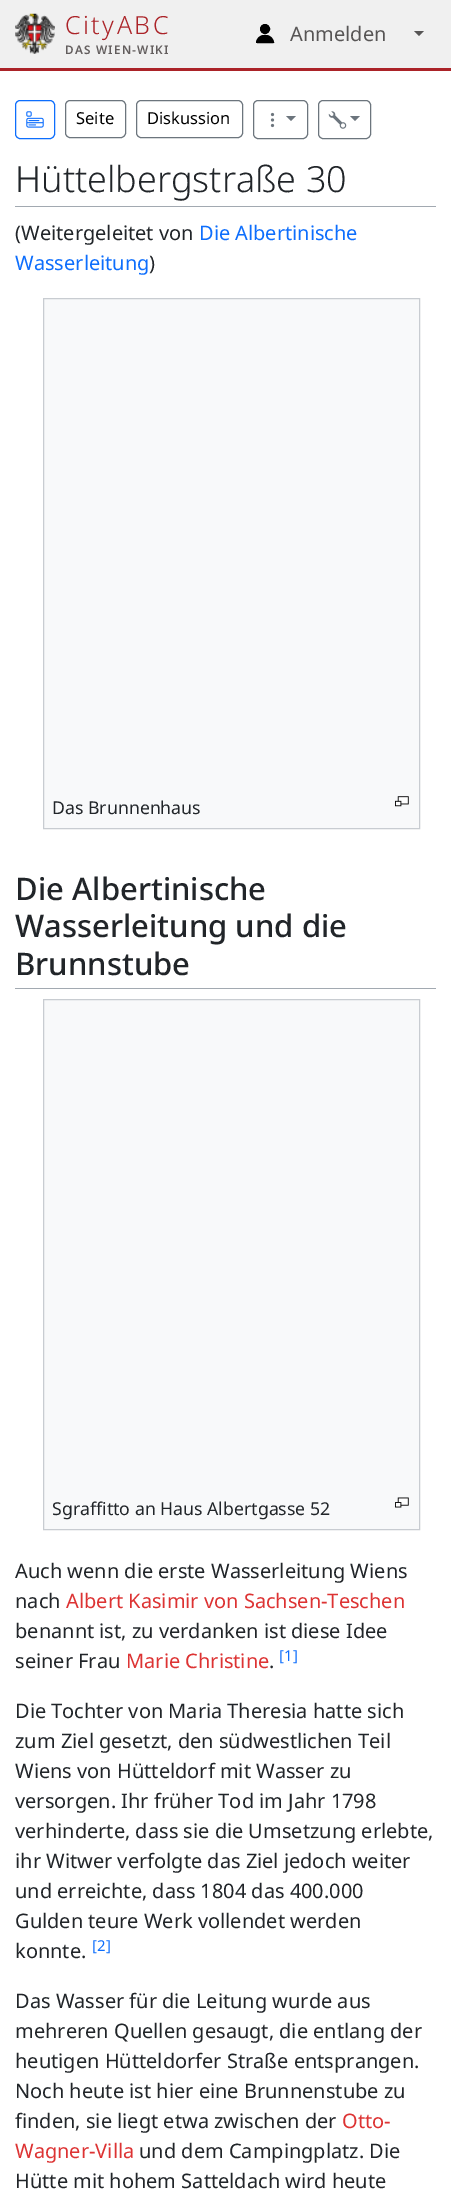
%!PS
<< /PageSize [451 2200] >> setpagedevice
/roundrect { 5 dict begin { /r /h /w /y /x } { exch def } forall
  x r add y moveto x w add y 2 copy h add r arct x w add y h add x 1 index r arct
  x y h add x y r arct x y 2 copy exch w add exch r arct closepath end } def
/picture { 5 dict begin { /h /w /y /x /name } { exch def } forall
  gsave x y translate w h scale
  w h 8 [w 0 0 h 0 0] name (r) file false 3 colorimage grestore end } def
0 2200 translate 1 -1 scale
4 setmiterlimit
1 setgray
0 0 451 2200 rectfill
0.941 setgray
0 0 451 68 rectfill
0.671 0.137 0.157 setrgbcolor
0 68 451 3 rectfill
(img1.rgb) 15 13 40 41 picture
/NotoSans-Light [25 0 0 -25 0 0] selectfont
65 34 moveto 2.5 0 (CityABC) ashow
/NotoSans-SemiBold [11.75 0 0 -11.75 0 0] selectfont
0.384 0.365 0.365 setrgbcolor
65 54 moveto 1.25 0 (DAS WIEN-WIKI) ashow
0 setgray
newpath 264 35.5 moveto 266 35.5 lineto 270 35.5 273.5 39 273.5 43 curveto 273.5 42.5 lineto 256.5 42.5 lineto 256.5 43 lineto 256.5 39 260 35.5 264 35.5 curveto closepath gsave fill grestore
stroke
newpath 265 29 4.5 0 360 arc closepath gsave fill grestore
stroke
/NotoSans-Regular [20 0 0 -20 0 0] selectfont
0.341 0.333 0.333 setrgbcolor
290 41 moveto (Anmelden) show
newpath 414 31 moveto 424 31 lineto 419 36 lineto closepath fill
0.051 0.431 0.992 setrgbcolor
15.5 100.5 39 38 4.5 roundrect stroke
(img2.rgb) 26 111 18 17 picture
0.424 0.459 0.49 setrgbcolor
65.5 100.5 60 37 4.5 roundrect stroke
/NotoSans-Regular [16.5 0 0 -16.5 0 0] selectfont
0 setgray
76 124 moveto (Seite) show
0.424 0.459 0.49 setrgbcolor
136.5 100.5 106 37 4.5 roundrect stroke
0 setgray
147 124 moveto (Diskussion) show
0.424 0.459 0.49 setrgbcolor
253.5 100.5 54 38 4.5 roundrect stroke
(img3.rgb) 270 112 5 16 picture
newpath 286 116 moveto 296 116 lineto 291 121 lineto closepath fill
318.5 100.5 52 38 4.5 roundrect stroke
(img4.rgb) 328 111 19 18 picture
newpath 350 116 moveto 360 116 lineto 355 121 lineto closepath fill
0.635 0.663 0.694 setrgbcolor
15 206 421 1 rectfill
/NotoSans-Light [36 0 0 -36 0 0] selectfont
0.129 0.145 0.161 setrgbcolor
15 192 moveto (Hüttelbergstraße 30) show
/NotoSans-Regular [20 0 0 -20 0 0] selectfont
15 240 moveto (\(Weitergeleitet von) show
0.051 0.431 0.992 setrgbcolor
199 240 moveto (Die Albertinische) show
15 270 moveto (Wasserleitung) show
0.129 0.145 0.161 setrgbcolor
149 270 moveto (\)) show
0.973 0.976 0.98 setrgbcolor
newpath 43.5 298.5 moveto 419.5 298.5 lineto 419.5 828.5 lineto 43.5 828.5 lineto closepath gsave fill grestore
0.784 0.8 0.82 setrgbcolor
stroke
/NotoSans-Regular [17.7 0 0 -17.7 0 0] selectfont
0.129 0.145 0.161 setrgbcolor
52 814 moveto (Das Brunnenhaus) show
(img5.rgb) 395 796 14 11 picture
0.635 0.663 0.694 setrgbcolor
15 988 421 1 rectfill
/NotoSans-Medium [31 0 0 -31 0 0] selectfont
0.129 0.145 0.161 setrgbcolor
15 900 moveto (Die Albertinische) show
15 937 moveto (Wasserleitung und die) show
15 975 moveto (Brunnstube) show
0.973 0.976 0.98 setrgbcolor
newpath 43.5 999.5 moveto 419.5 999.5 lineto 419.5 1529.5 lineto 43.5 1529.5 lineto closepath gsave fill grestore
0.784 0.8 0.82 setrgbcolor
stroke
/NotoSans-Regular [17.7 0 0 -17.7 0 0] selectfont
0.129 0.145 0.161 setrgbcolor
52 1515 moveto (Sgraffitto an Haus Albertgasse 52) show
(img6.rgb) 395 1497 14 11 picture
/NotoSans-Regular [20 0 0 -20 0 0] selectfont
15 1578 moveto (Auch wenn die erste Wasserleitung Wiens) show
15 1608 moveto (nach) show
0.867 0.2 0.2 setrgbcolor
66 1608 moveto (Albert Kasimir von Sachsen-Teschen) show
0.129 0.145 0.161 setrgbcolor
15 1638 moveto (benannt ist, zu verdanken ist diese Idee) show
15 1668 moveto (seiner Frau) show
0.867 0.2 0.2 setrgbcolor
126 1668 moveto (Marie Christine) show
0.129 0.145 0.161 setrgbcolor
269 1668 moveto (.) show
/NotoSans-Regular [15 0 0 -15 0 0] selectfont
0.051 0.431 0.992 setrgbcolor
279 1661 moveto ([1]) show
/NotoSans-Regular [20 0 0 -20 0 0] selectfont
0.129 0.145 0.161 setrgbcolor
15 1718 moveto (Die Tochter von Maria Theresia hatte sich) show
15 1748 moveto (zum Ziel gesetzt, den südwestlichen Teil) show
15 1778 moveto (Wiens von Hütteldorf mit Wasser zu) show
15 1808 moveto (versorgen. Ihr früher Tod im Jahr 1798) show
15 1838 moveto (verhinderte, dass sie die Umsetzung erlebte,) show
15 1868 moveto (ihr Witwer verfolgte das Ziel jedoch weiter) show
15 1898 moveto (und erreichte, dass 1804 das 400.000) show
15 1928 moveto (Gulden teure Werk vollendet werden) show
15 1958 moveto (konnte.) show
/NotoSans-Regular [15 0 0 -15 0 0] selectfont
0.051 0.431 0.992 setrgbcolor
92 1951 moveto ([2]) show
/NotoSans-Regular [20 0 0 -20 0 0] selectfont
0.129 0.145 0.161 setrgbcolor
15 2008 moveto (Das Wasser für die Leitung wurde aus) show
15 2038 moveto (mehreren Quellen gesaugt, die entlang der) show
15 2068 moveto (heutigen Hütteldorfer Straße entsprangen.) show
15 2098 moveto (Noch heute ist hier eine Brunnenstube zu) show
15 2128 moveto (finden, sie liegt etwa zwischen der) show
0.867 0.2 0.2 setrgbcolor
342 2128 moveto (Otto-) show
15 2158 moveto (Wagner-Villa) show
0.129 0.145 0.161 setrgbcolor
139 2158 moveto (und dem Campingplatz. Die) show
15 2188 moveto (Hütte mit hohem Satteldach wird heute) show
showpage
